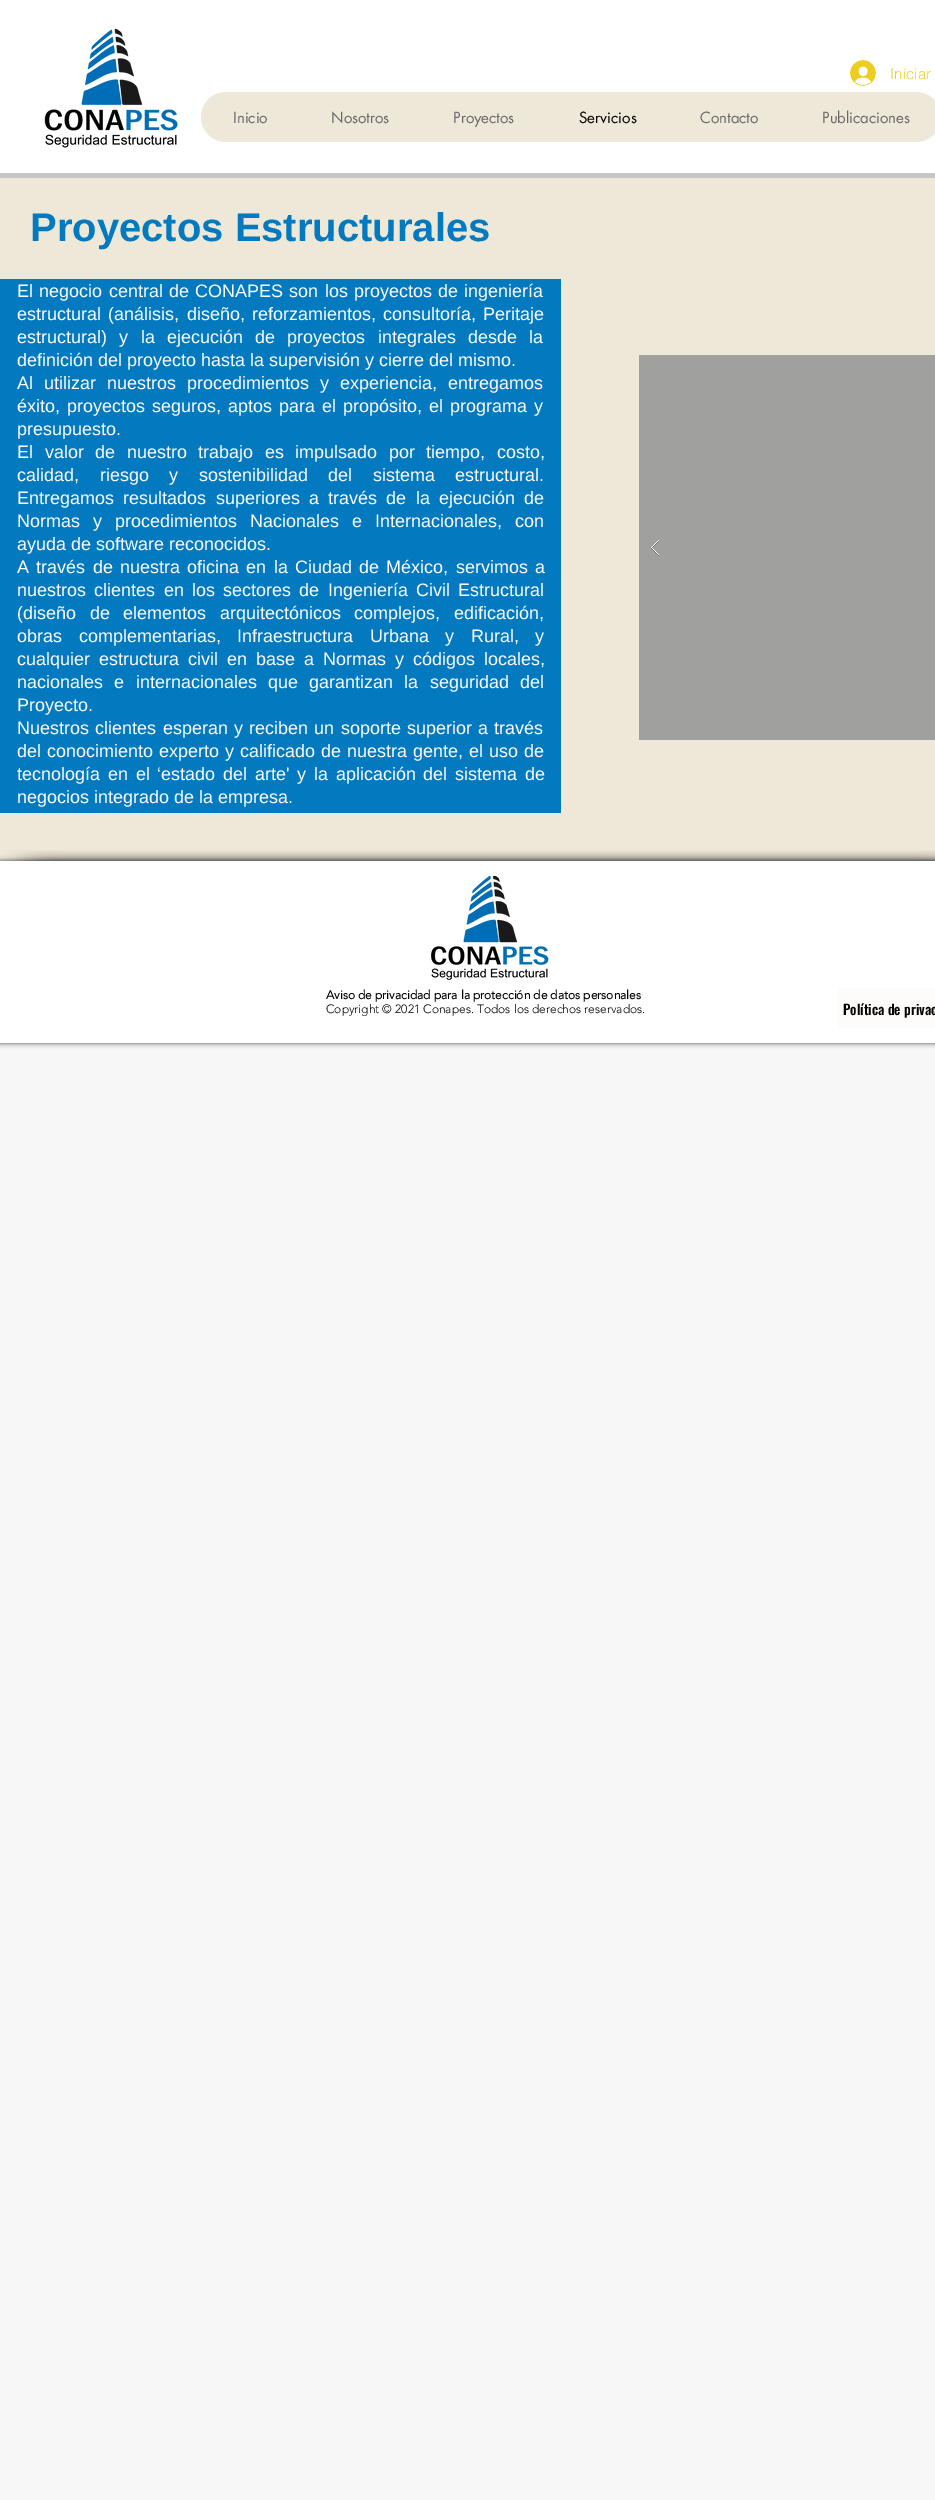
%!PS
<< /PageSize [935 2500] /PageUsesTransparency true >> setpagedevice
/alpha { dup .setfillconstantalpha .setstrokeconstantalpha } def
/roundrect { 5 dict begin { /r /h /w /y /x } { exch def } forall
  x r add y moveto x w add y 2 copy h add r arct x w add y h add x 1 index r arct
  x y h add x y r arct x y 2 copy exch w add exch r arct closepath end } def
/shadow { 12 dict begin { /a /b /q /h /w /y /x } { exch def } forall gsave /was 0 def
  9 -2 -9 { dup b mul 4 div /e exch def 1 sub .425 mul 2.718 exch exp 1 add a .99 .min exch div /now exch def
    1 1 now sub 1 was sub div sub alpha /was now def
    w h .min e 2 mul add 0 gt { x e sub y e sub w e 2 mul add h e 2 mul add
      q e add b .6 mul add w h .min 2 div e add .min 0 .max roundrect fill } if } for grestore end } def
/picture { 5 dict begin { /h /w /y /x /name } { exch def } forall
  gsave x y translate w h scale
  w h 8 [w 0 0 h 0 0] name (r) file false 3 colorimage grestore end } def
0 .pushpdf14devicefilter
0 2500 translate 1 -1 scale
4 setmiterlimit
0.969 setgray
0 0 935 2500 rectfill
1 setgray
0 0 935 173 rectfill
0.776 setgray
0 173 935 5 rectfill
(img1.rgb) 44 28 134 120 picture
(img2.rgb) 850 60 26 26 picture
/helvetica-Light [15 0 0 -15 0 0] selectfont
0.929 0.804 0.122 setrgbcolor
890 79 moveto (Iniciar) show
0.933 0.91 0.847 setrgbcolor
201 92 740 50 25 roundrect fill
/futura-Regular [15 0 0 -15 0 0] selectfont
0.412 setgray
233 123 moveto (Inicio) show
331 123 moveto (Nosotros) show
453 123 moveto (Proyectos) show
0 setgray
579 123 moveto (Servicios) show
0.412 setgray
700 123 moveto (Contacto) show
822 123 moveto (Publicaciones) show
0.933 0.91 0.847 setrgbcolor
0 178 935 683 rectfill
/LiberationSans-Bold [40 0 0 -40 0 0] selectfont
0.012 0.475 0.753 setrgbcolor
30 241 moveto (Proyectos Estructurales) show
0 279 561 534 rectfill
/LiberationSans-Regular [18 0 0 -18 0 0] selectfont
1 setgray
17 297 moveto 1.25 0 32 (El negocio central de CONAPES son los proyectos de ingeniería) widthshow
17 320 moveto 2.25 0 32 (estructural \(análisis, diseño, reforzamientos, consultoría, Peritaje) widthshow
17 343 moveto 7.25 0 32 (estructural\) y la ejecución de proyectos integrales desde la) widthshow
17 366 moveto (definición del proyecto hasta la supervisión y cierre del mismo.) show
17 389 moveto 6 0 32 (Al utilizar nuestros procedimientos y experiencia, entregamos) widthshow
17 412 moveto 2 0 32 (éxito, proyectos seguros, aptos para el propósito, el programa y) widthshow
17 435 moveto (presupuesto.) show
17 458 moveto 6.5 0 32 (El valor de nuestro trabajo es impulsado por tiempo, costo,) widthshow
17 481 moveto 15.5 0 32 (calidad, riesgo y sostenibilidad del sistema estructural.) widthshow
17 504 moveto 4.25 0 32 (Entregamos resultados superiores a través de la ejecución de) widthshow
17 527 moveto 8 0 32 (Normas y procedimientos Nacionales e Internacionales, con) widthshow
17 550 moveto (ayuda de software reconocidos.) show
17 573 moveto 2.25 0 32 (A través de nuestra oficina en la Ciudad de México, servimos a) widthshow
17 596 moveto 3.25 0 32 (nuestros clientes en los sectores de Ingeniería Civil Estructural) widthshow
17 619 moveto 8.5 0 32 (\(diseño de elementos arquitectónicos complejos, edificación,) widthshow
17 642 moveto 11.5 0 32 (obras complementarias, Infraestructura Urbana y Rural, y) widthshow
17 665 moveto 4 0 32 (cualquier estructura civil en base a Normas y códigos locales,) widthshow
17 688 moveto 6.25 0 32 (nacionales e internacionales que garantizan la seguridad del) widthshow
17 711 moveto (Proyecto.) show
17 734 moveto 1.25 0 32 (Nuestros clientes esperan y reciben un soporte superior a través) widthshow
17 757 moveto 1 0 32 (del conocimiento experto y calificado de nuestra gente, el uso de) widthshow
17 780 moveto 2.75 0 32 (tecnología en el ‘estado del arte' y la aplicación del sistema de) widthshow
17 803 moveto (negocios integrado de la empresa.) show
0.627 0.627 0.624 setrgbcolor
639 355 296 385 rectfill
(img3.rgb) 651 540 8 16 picture
0 setgray
0 861 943 182 0 2.5 0.7 shadow
1 setgray
0 861 935 182 rectfill
(img4.rgb) 3 850 97 11 picture
(img5.rgb) 100 850 780 11 picture
(img6.rgb) 880 850 55 11 picture
(img7.rgb) 430 876 119 104 picture
/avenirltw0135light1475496-Bold [12 0 0 -12 0 0] selectfont
0 setgray
326 999 moveto (Aviso de privacidad para la protección de datos personales) show
/avenirltw0135light1475496-Light [12 0 0 -12 0 0] selectfont
326 1013 moveto (Copyright © 2021 Conapes. Todos los derechos reservados.) show
0.996 0.988 0.98 setrgbcolor
838 988 97 40 rectfill
/Oswald-Medium [14 0 0 -14 0 0] selectfont
0 setgray
843 1015 moveto (Política de privac) show
.poppdf14devicefilter showpage
